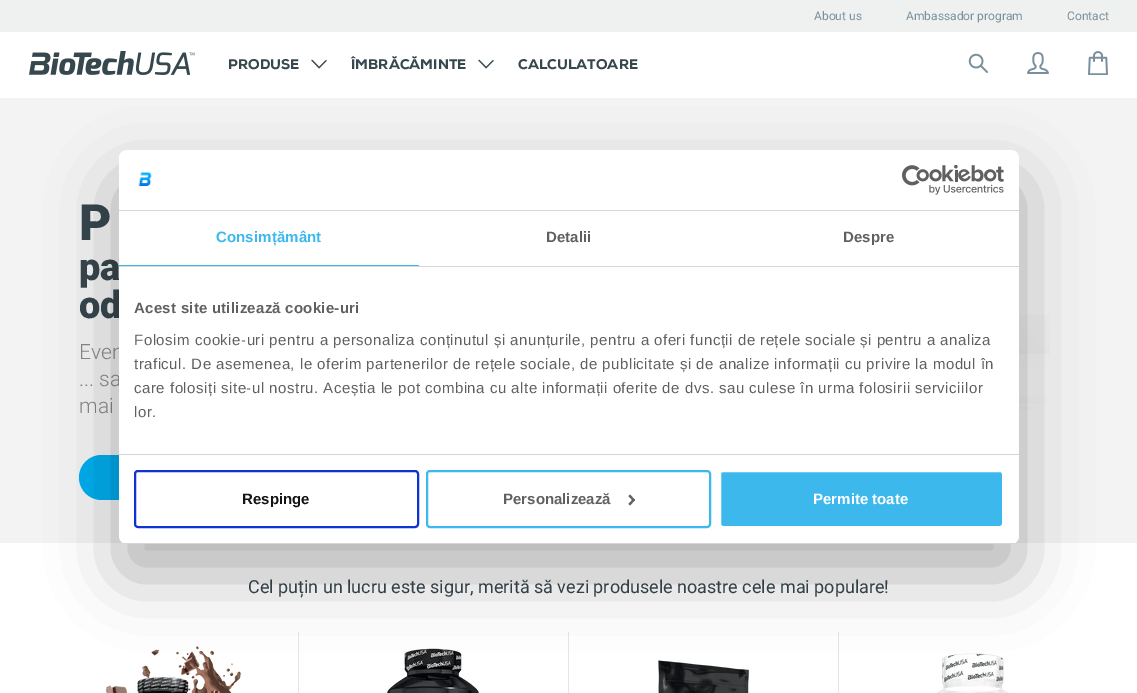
%!PS
<< /PageSize [1137 693] /PageUsesTransparency true >> setpagedevice
/alpha { dup .setfillconstantalpha .setstrokeconstantalpha } def
/roundrect { 5 dict begin { /r /h /w /y /x } { exch def } forall
  x r add y moveto x w add y 2 copy h add r arct x w add y h add x 1 index r arct
  x y h add x y r arct x y 2 copy exch w add exch r arct closepath end } def
/shadow { 12 dict begin { /a /b /q /h /w /y /x } { exch def } forall gsave /was 0 def
  9 -2 -9 { dup b mul 4 div /e exch def 1 sub .425 mul 2.718 exch exp 1 add a .99 .min exch div /now exch def
    1 1 now sub 1 was sub div sub alpha /was now def
    w h .min e 2 mul add 0 gt { x e sub y e sub w e 2 mul add h e 2 mul add
      q e add b .6 mul add w h .min 2 div e add .min 0 .max roundrect fill } if } for grestore end } def
/picture { 5 dict begin { /h /w /y /x /name } { exch def } forall
  gsave x y translate w h scale
  w h 8 [w 0 0 h 0 0] name (r) file false 3 colorimage grestore end } def
0 .pushpdf14devicefilter
0 693 translate 1 -1 scale
4 setmiterlimit
0.953 setgray
0 0 1137 693 rectfill
1 setgray
0 32 1137 66 rectfill
0.937 0.945 0.945 setrgbcolor
0 0 1137 32 rectfill
/Roboto-Regular [12 0 0 -12 0 0] selectfont
0.475 0.561 0.612 setrgbcolor
814 20 moveto (About us) show
906 20 moveto (Ambassador program) show
1067 20 moveto (Contact) show
(img1.rgb) 29 51 166 24 picture
/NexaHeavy-Regular [14 0 0 -14 0 0] selectfont
0.212 0.278 0.306 setrgbcolor
228 69 moveto (PRODUSE) show
(img2.rgb) 311 59 16 10 picture
351 69 moveto (ÎMBRĂCĂMINTE) show
(img2.rgb) 478 59 16 10 picture
518 69 moveto (CALCULATOARE) show
(img3.rgb) 968 53 20 20 picture
(img4.rgb) 1027 52 22 22 picture
(img5.rgb) 1088 51 20 24 picture
/Roboto-Black [50 0 0 -50 0 0] selectfont
79 240 moveto (P) show
/Roboto-Black [38 0 0 -38 0 0] selectfont
79 280 moveto (pa) show
79 318 moveto (od) show
/Roboto-Light [21 0 0 -21 0 0] selectfont
0.537 setgray
79 359 moveto (Even) show
79 386 moveto (... sa) show
79 413 moveto (mai) show
0 0.678 0.937 setrgbcolor
79 455 192 45 22.5 roundrect fill
(img6.rgb) 1019 315 31 94 picture
1 setgray
0 543 1137 150 rectfill
/Roboto-Regular [18 0 0 -18 0 0] selectfont
0.212 0.278 0.306 setrgbcolor
248 593 moveto (Cel puțin un lucru este sigur, merită să vezi produsele noastre cele mai populare!) show
0.898 setgray
298 632 1 61 rectfill
(img7.rgb) 105 646 136 47 picture
568 632 1 61 rectfill
(img8.rgb) 387 648 92 45 picture
838 632 1 61 rectfill
(img9.rgb) 658 660 91 33 picture
(img10.rgb) 937 653 72 40 picture
0 setgray
119 182 900 394 8 34 0.3 shadow
1 setgray
119 150 900 394 8 roundrect fill
0.839 setgray
119 210 900 1 rectfill
(img11.rgb) 138 172 14 15 picture
(img12.rgb) 902 165 102 30 picture
119 266 900 1 rectfill
0.235 0.722 0.929 setrgbcolor
119 265 300 1 rectfill
/LiberationSans-Bold [15 0 0 -15 0 0] selectfont
216 242 moveto 0.1 0 (Consimțământ) ashow
0.376 setgray
546 242 moveto 0.1 0 (Detalii) ashow
843 242 moveto 0.1 0 (Despre) ashow
0.839 setgray
119 454 900 1 rectfill
0.376 setgray
134 313 moveto 0.25 0 (Acest site utilizează cookie-uri) ashow
/LiberationSans-Regular [15 0 0 -15 0 0] selectfont
134 345 moveto 0.5 0 (Folosim cookie-uri pentru a personaliza conținutul și anunțurile, pentru a oferi funcții de rețele sociale și pentru a analiza) ashow
134 369 moveto 0.5 0 (traficul. De asemenea, le oferim partenerilor de rețele sociale, de publicitate și de analize informații cu privire la modul în) ashow
134 393 moveto 0.5 0 (care folosiți site-ul nostru. Aceștia le pot combina cu alte informații oferite de dvs. sau culese în urma folosirii serviciilor) ashow
134 417 moveto 0.5 0 (lor.) ashow
gsave
119 150 900 394 8 roundrect clip newpath
0.839 setgray
119 543 900 1 rectfill
grestore
0.063 0.196 0.812 setrgbcolor
2 setlinewidth
135 471 283 56 3 roundrect stroke
/LiberationSans-Bold [15 0 0 -15 0 0] selectfont
0.078 setgray
242 504 moveto (Respinge) show
0.235 0.722 0.929 setrgbcolor
427 471 283 56 3 roundrect stroke
0.376 setgray
503 504 moveto (Personalizează) show
newpath 630 494.5 moveto 635 500 lineto 633.5 501.5 lineto 628.5 496 lineto closepath fill
newpath 633.5 498.5 moveto 635 500 lineto 630 505.5 lineto 628.5 504 lineto closepath fill
0.235 0.722 0.929 setrgbcolor
720 471 283 56 3 roundrect gsave fill grestore
1 setgray
stroke
813 504 moveto (Permite toate) show
.poppdf14devicefilter showpage
